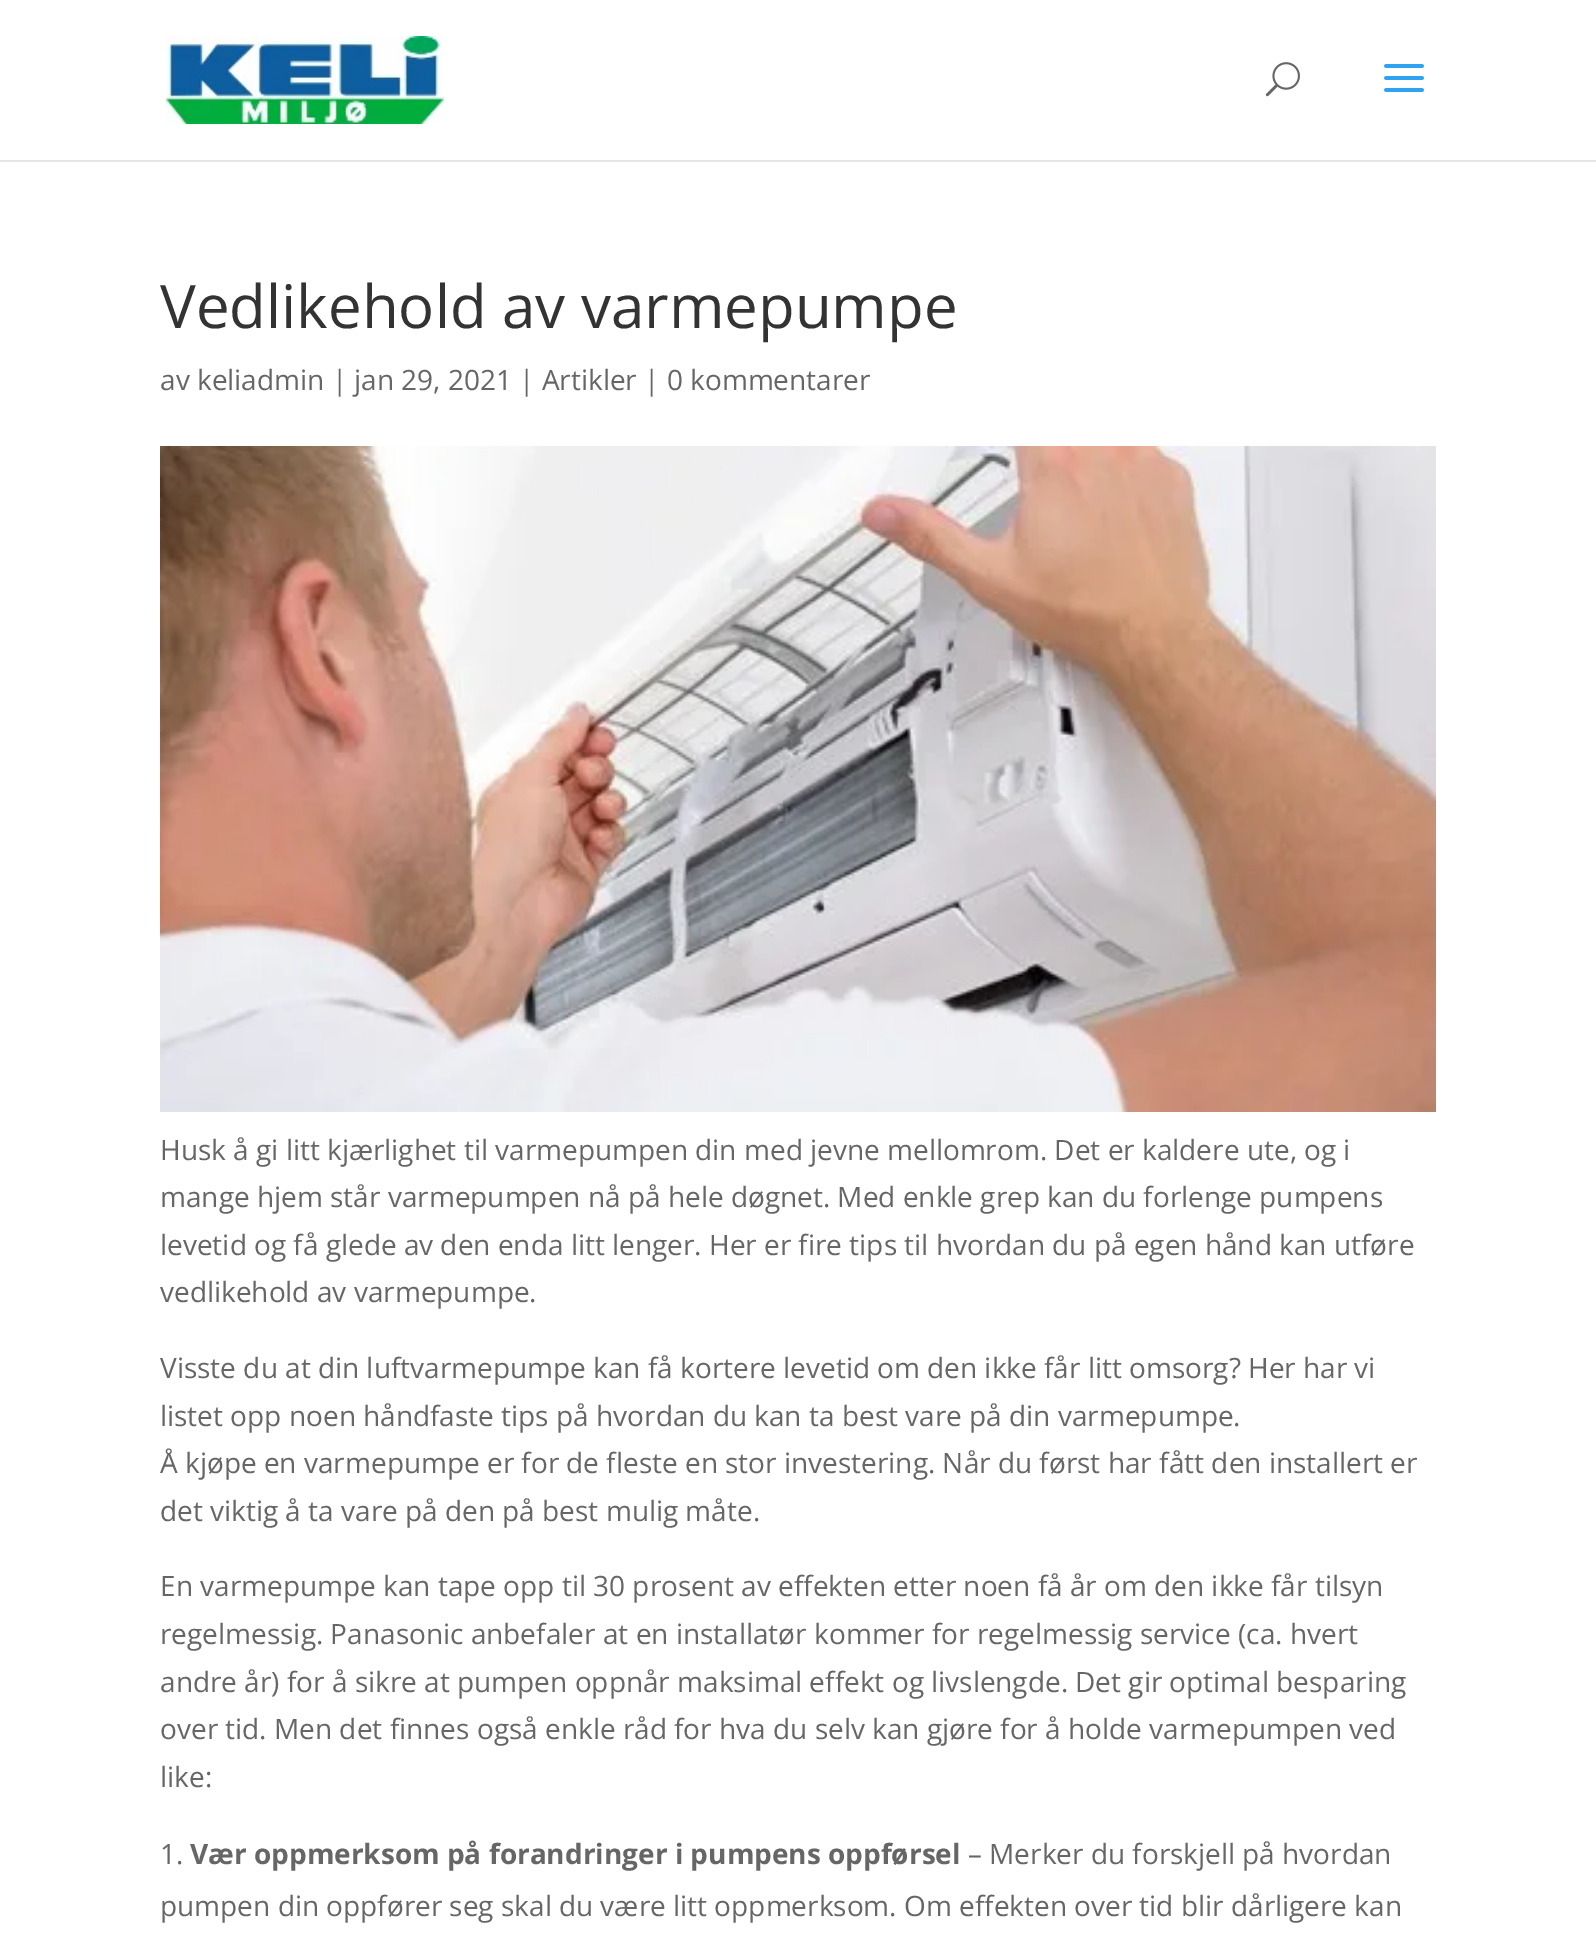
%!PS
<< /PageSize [1596 1944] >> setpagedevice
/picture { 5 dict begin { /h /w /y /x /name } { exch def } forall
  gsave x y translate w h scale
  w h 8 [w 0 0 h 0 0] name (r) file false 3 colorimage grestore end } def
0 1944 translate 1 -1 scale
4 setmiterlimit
1 setgray
0 0 1596 1944 rectfill
0.902 setgray
0 160 1596 2 rectfill
(img1.rgb) 166 36 278 88 picture
(img2.rgb) 1265 62 35 35 picture
(img3.rgb) 1384 64 40 28 picture
/OpenSans-Regular [60 0 0 -60 0 0] selectfont
0.2 setgray
160 328 moveto (Vedlikehold av varmepumpe) show
/OpenSans-Regular [28 0 0 -28 0 0] selectfont
0.4 setgray
160 390 moveto (av keliadmin | jan 29, 2021 | Artikler | 0 kommentarer) show
(img4.rgb) 160 446 1276 666 picture
160 1160 moveto (Husk å gi litt kjærlighet til varmepumpen din med jevne mellomrom. Det er kaldere ute, og i) show
160 1207 moveto (mange hjem står varmepumpen nå på hele døgnet. Med enkle grep kan du forlenge pumpens) show
160 1255 moveto (levetid og få glede av den enda litt lenger. Her er fire tips til hvordan du på egen hånd kan utføre) show
160 1302 moveto (vedlikehold av varmepumpe.) show
160 1378 moveto (Visste du at din luftvarmepumpe kan få kortere levetid om den ikke får litt omsorg? Her har vi) show
160 1426 moveto (listet opp noen håndfaste tips på hvordan du kan ta best vare på din varmepumpe.) show
160 1473 moveto (Å kjøpe en varmepumpe er for de fleste en stor investering. Når du først har fått den installert er) show
160 1521 moveto (det viktig å ta vare på den på best mulig måte.) show
160 1596 moveto (En varmepumpe kan tape opp til 30 prosent av effekten etter noen få år om den ikke får tilsyn) show
160 1644 moveto (regelmessig. Panasonic anbefaler at en installatør kommer for regelmessig service \(ca. hvert) show
160 1692 moveto (andre år\) for å sikre at pumpen oppnår maksimal effekt og livslengde. Det gir optimal besparing) show
160 1739 moveto (over tid. Men det finnes også enkle råd for hva du selv kan gjøre for å holde varmepumpen ved) show
160 1787 moveto (like:) show
160 1864 moveto (1.) show
/OpenSans-Bold [28 0 0 -28 0 0] selectfont
190 1864 moveto (Vær oppmerksom på forandringer i pumpens oppførsel) show
/OpenSans-Regular [28 0 0 -28 0 0] selectfont
968 1864 moveto (– Merker du forskjell på hvordan) show
160 1916 moveto (pumpen din oppfører seg skal du være litt oppmerksom. Om effekten over tid blir dårligere kan) show
showpage
